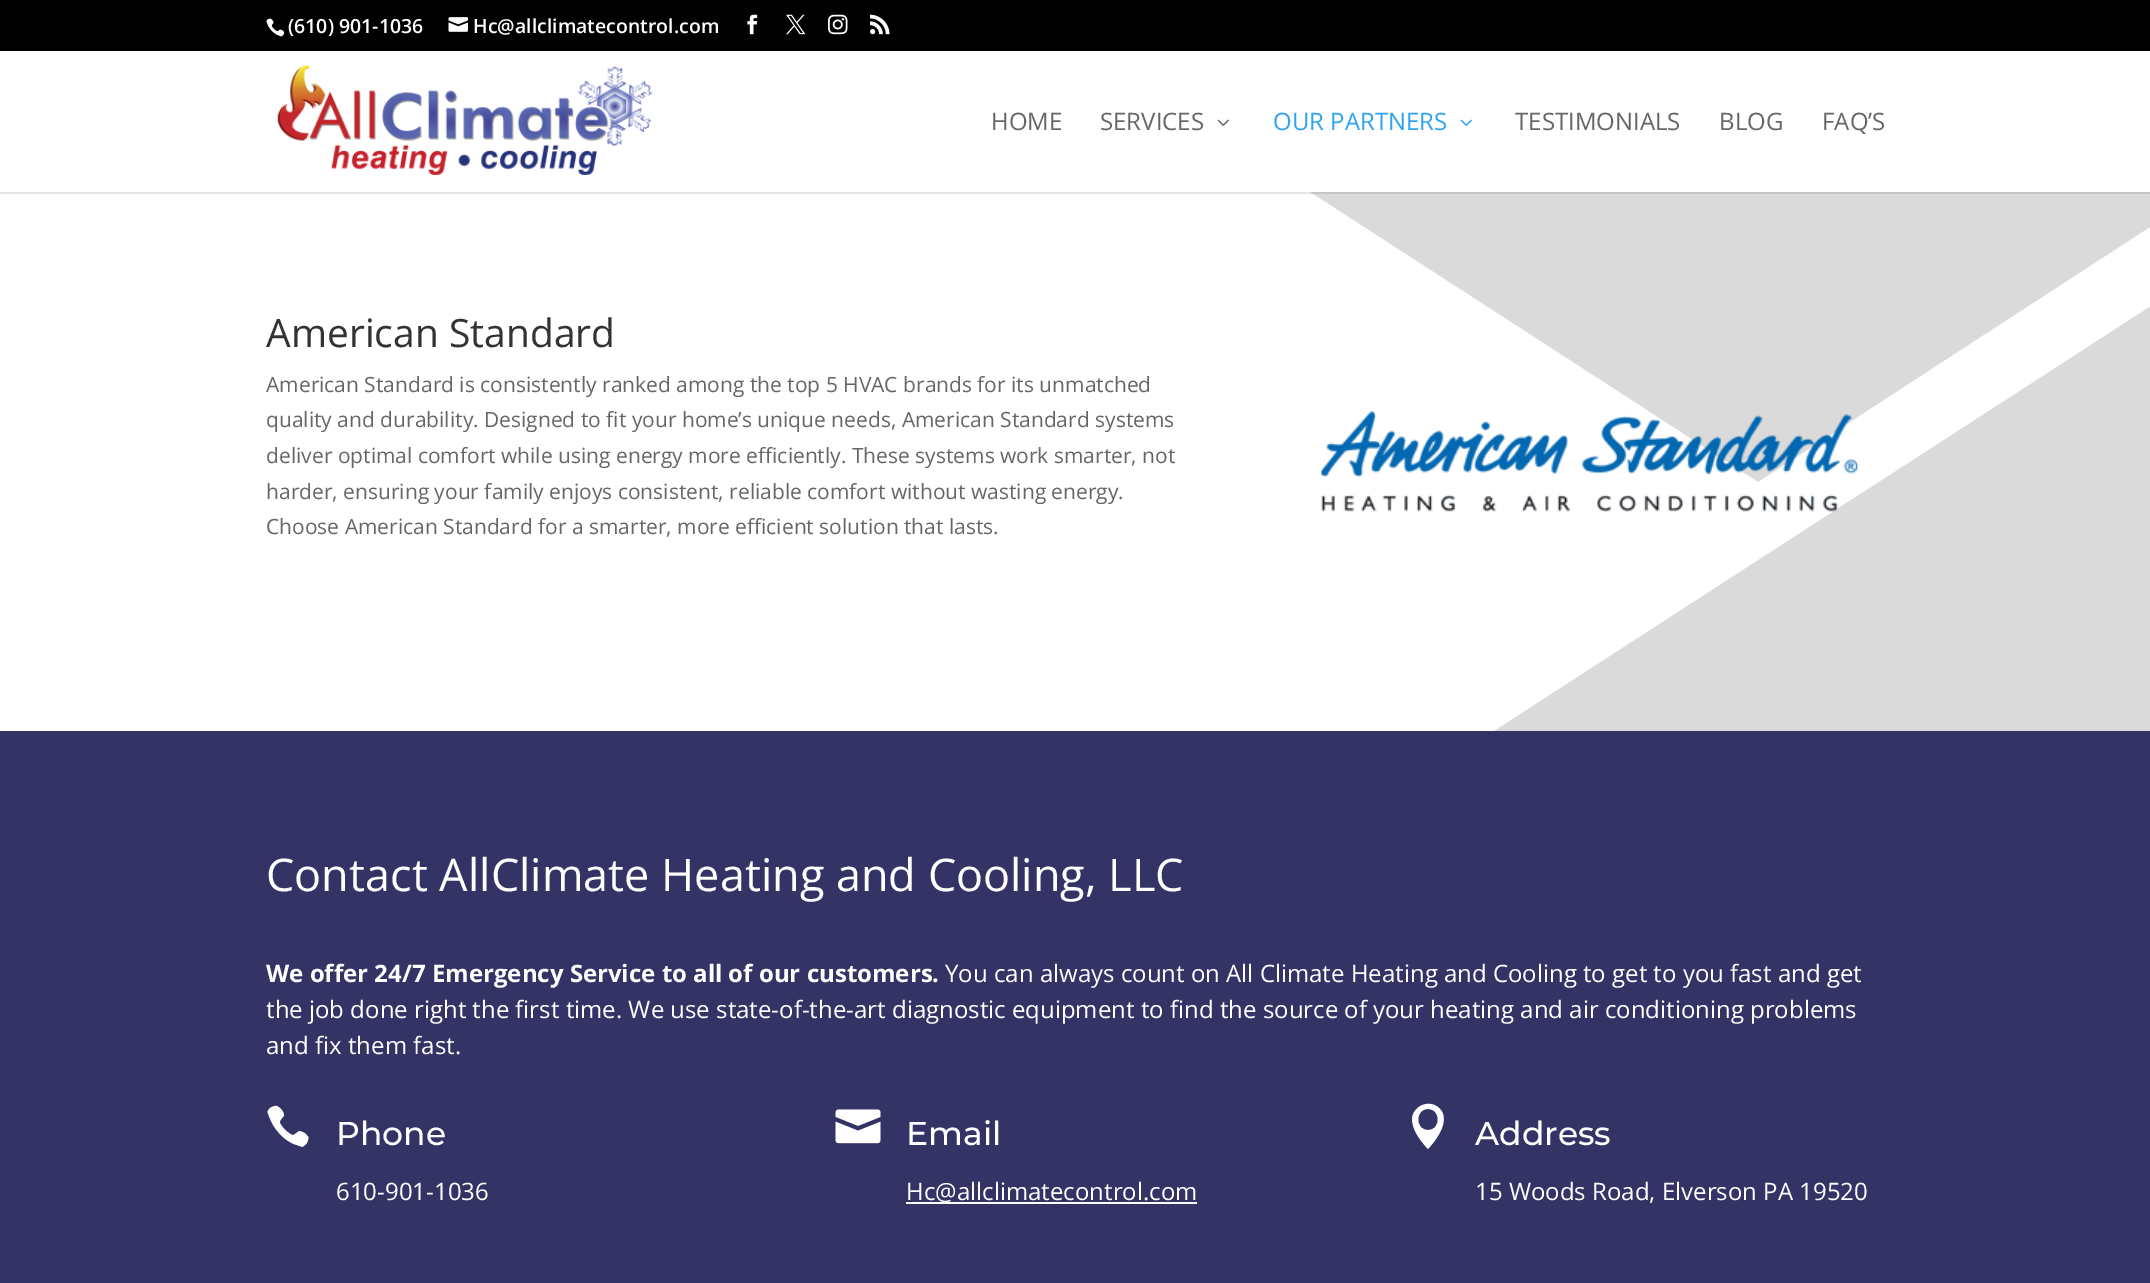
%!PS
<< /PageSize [2150 1283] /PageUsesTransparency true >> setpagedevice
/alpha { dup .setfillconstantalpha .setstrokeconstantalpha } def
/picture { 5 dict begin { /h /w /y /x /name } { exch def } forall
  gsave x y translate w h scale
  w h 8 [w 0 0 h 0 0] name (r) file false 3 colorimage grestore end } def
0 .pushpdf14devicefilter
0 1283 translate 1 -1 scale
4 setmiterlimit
0.855 setgray
0 0 2150 1283 rectfill
0 setgray
0 0 2150 51 rectfill
(img1.rgb) 266 18 19 19 picture
/OpenSans-SemiBold [19.5 0 0 -19.5 0 0] selectfont
1 setgray
288 33 moveto (\(610\) 901-1036) show
(img2.rgb) 448 17 20 15 picture
473 33 moveto (Hc@allclimatecontrol.com) show
(img3.rgb) 747 14 11 21 picture
(img4.rgb) 786 14 20 21 picture
(img5.rgb) 828 14 20 21 picture
(img6.rgb) 870 14 20 21 picture
newpath 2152 226 moveto 1758 482 lineto 1305 189 lineto -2 189 lineto -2 732 lineto 1492 732 lineto 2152 305 lineto closepath fill
0.1 alpha
0 setgray
0 192 2150 2 rectfill
1 alpha
1 setgray
0 51 2150 141 rectfill
(img7.rgb) 277 65 376 110 picture
/OpenSans-Regular [24 0 0 -24 0 0] selectfont
0.4 setgray
991 130 moveto (HOME) show
1100 130 moveto (SERVICES) show
(img8.rgb) 1217 119 12 7 picture
0.18 0.639 0.949 setrgbcolor
1273 130 moveto (OUR PARTNERS) show
(img9.rgb) 1460 119 12 7 picture
0.4 setgray
1515 130 moveto (TESTIMONIALS) show
1719 130 moveto (BLOG) show
1822 130 moveto (FAQ’S) show
/OpenSans-Regular [39 0 0 -39 0 0] selectfont
0.2 setgray
266 347 moveto (American Standard) show
/OpenSans-Regular [21 0 0 -21 0 0] selectfont
0.4 setgray
266 392 moveto (American Standard is consistently ranked among the top 5 HVAC brands for its unmatched) show
266 427 moveto (quality and durability. Designed to fit your home’s unique needs, American Standard systems) show
266 463 moveto (deliver optimal comfort while using energy more efficiently. These systems work smarter, not) show
266 499 moveto (harder, ensuring your family enjoys consistent, reliable comfort without wasting energy.) show
266 534 moveto (Choose American Standard for a smarter, more efficient solution that lasts.) show
(img10.rgb) 1321 411 537 101 picture
0.2 0.2 0.4 setrgbcolor
0 731 2150 552 rectfill
/OpenSans-Regular [45 0 0 -45 0 0] selectfont
1 setgray
266 891 moveto (Contact AllClimate Heating and Cooling, LLC) show
/OpenSans-Bold [24 0 0 -24 0 0] selectfont
266 982 moveto (We offer 24/7 Emergency Service to all of our customers.) show
/OpenSans-Regular [24 0 0 -24 0 0] selectfont
945 982 moveto (You can always count on All Climate Heating and Cooling to get to you fast and get) show
266 1018 moveto (the job done right the first time. We use state-of-the-art diagnostic equipment to find the source of your heating and air conditioning problems) show
266 1054 moveto (and fix them fast.) show
(img11.rgb) 267 1105 42 42 picture
/Montserrat-Medium [33 0 0 -33 0 0] selectfont
336 1145 moveto (Phone) show
/OpenSans-Regular [24 0 0 -24 0 0] selectfont
336 1200 moveto (610-901-1036) show
(img12.rgb) 835 1109 46 35 picture
/Montserrat-Medium [33 0 0 -33 0 0] selectfont
906 1145 moveto (Email) show
906 1202 291 2 rectfill
/OpenSans-Regular [24 0 0 -24 0 0] selectfont
906 1200 moveto (Hc@allclimatecontrol.com) show
newpath 1427 1148 moveto 1428 1149 lineto 1433 1143 lineto 1440 1134 1449 1119 1440 1109 curveto 1430 1098 1412 1106 1412 1120 curveto 1413 1131 1420 1140 1427 1148 curveto closepath 1428 1109 moveto 1441 1109 1441 1130 1428 1130 curveto 1415 1130 1415 1109 1428 1109 curveto closepath fill
/Montserrat-Medium [33 0 0 -33 0 0] selectfont
1475 1145 moveto (Address) show
/OpenSans-Regular [24 0 0 -24 0 0] selectfont
1475 1200 moveto (15 Woods Road, Elverson PA 19520) show
.poppdf14devicefilter showpage
